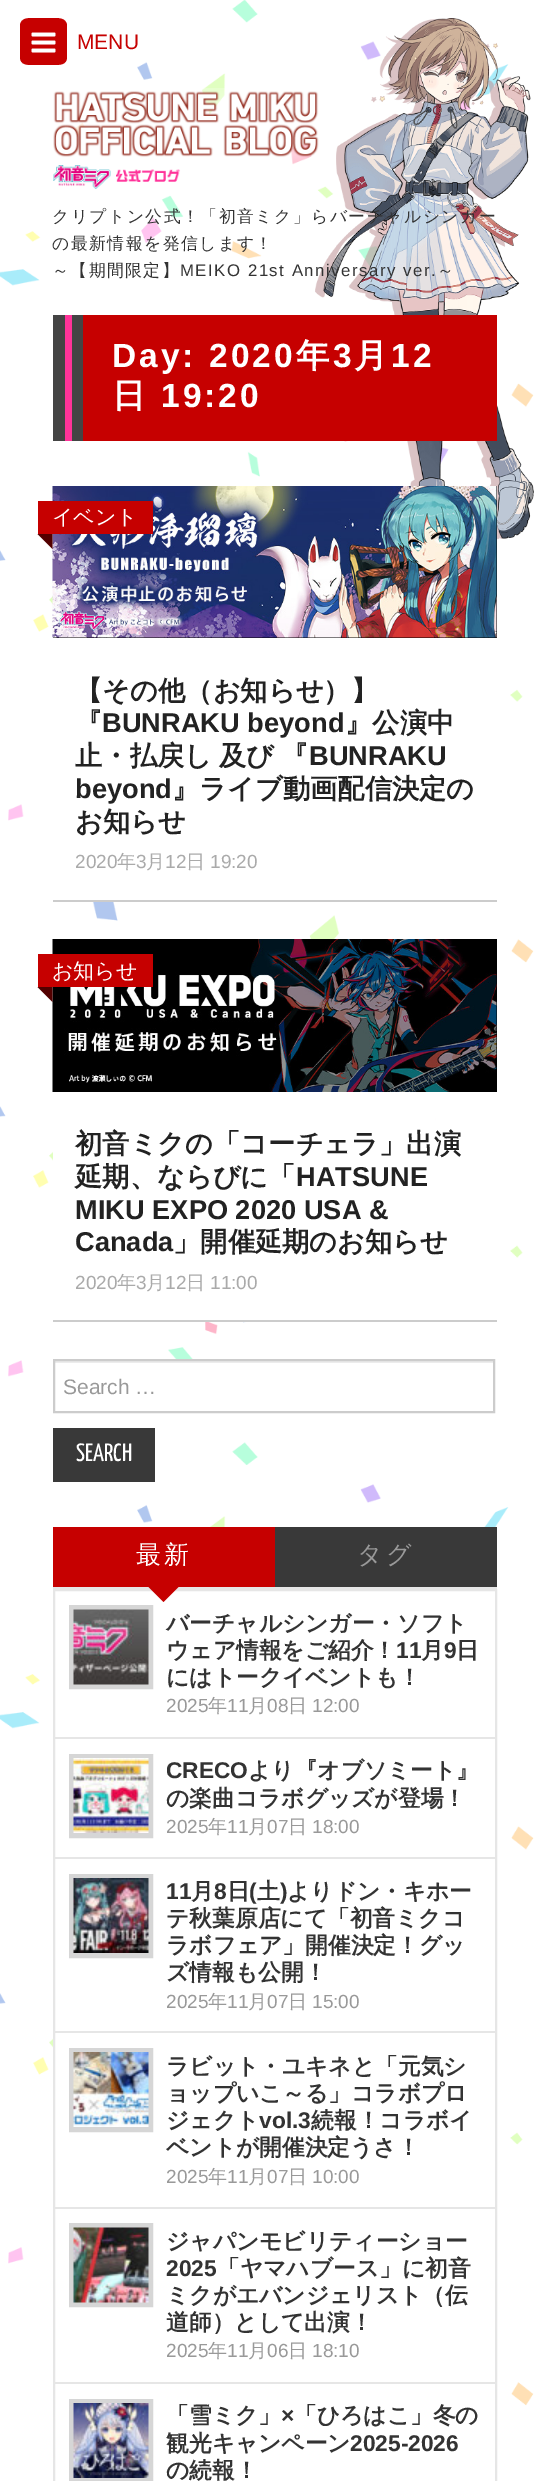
%!PS
<< /PageSize [548 2481] >> setpagedevice
/picture { 5 dict begin { /h /w /y /x /name } { exch def } forall
  gsave x y translate w h scale
  w h 8 [w 0 0 h 0 0] name (r) file false 3 colorimage grestore end } def
0 2481 translate 1 -1 scale
4 setmiterlimit
1 setgray
0 0 548 2481 rectfill
(img1.rgb) 0 0 534 2406 picture
(img2.rgb) 315 18 219 522 picture
0.776 0 0 setrgbcolor
newpath 20 57 moveto 20 25 lineto 21 18 28 18 33 18 curveto 53 18 lineto 59 18 66 18 67 25 curveto 67 57 lineto 67 65 60 65 53 65 curveto 33 65 lineto 27 65 20 65 20 57 curveto closepath fill
(img3.rgb) 31 32 25 21 picture
/LiberationSans-Regular [21 0 0 -21 0 0] selectfont
77 49 moveto (MENU) show
(img4.rgb) 53 88 266 101 picture
/WenQuanYiZenHei-Medium [16.8 0 0 -16.8 0 0] selectfont
0.2 setgray
52 222 moveto 1.5 0 (クリプトン公式！「初音ミク」らバーチャルシンガー) ashow
52 249 moveto 1.5 0 (の最新情報を発信します！) ashow
52 276 moveto 1.5 0 (～【期間限定】) ashow
/LiberationSans-Regular [16.8 0 0 -16.8 0 0] selectfont
180 276 moveto 1.5 0 (MEIKO 21st Anniversary ver.) ashow
/WenQuanYiZenHei-Medium [16.8 0 0 -16.8 0 0] selectfont
437 276 moveto 1.5 0 (～) ashow
0.776 0 0 setrgbcolor
83 315 414 126 rectfill
0.267 setgray
53 315 30 126 rectfill
1 0.2 0.6 setrgbcolor
65 315 7 126 rectfill
/LiberationSans-Bold [33.5 0 0 -33.5 0 0] selectfont
1 setgray
112 367 moveto 3 0 (Day: 2020) ashow
/WenQuanYiZenHei-Bold [33.5 0 0 -33.5 0 0] selectfont
296 367 moveto 3 0 (年) ashow
/LiberationSans-Bold [33.5 0 0 -33.5 0 0] selectfont
333 367 moveto 3 0 (3) ashow
/WenQuanYiZenHei-Bold [33.5 0 0 -33.5 0 0] selectfont
354 367 moveto 3 0 (月) ashow
/LiberationSans-Bold [33.5 0 0 -33.5 0 0] selectfont
391 367 moveto 3 0 (12) ashow
/WenQuanYiZenHei-Bold [33.5 0 0 -33.5 0 0] selectfont
112 407 moveto 3 0 (日) ashow
/LiberationSans-Bold [33.5 0 0 -33.5 0 0] selectfont
161 407 moveto 3 0 (19:20) ashow
84 644 379 256 rectfill
0.8 setgray
53 900 444 2 rectfill
0 setgray
53 486 444 152 rectfill
(img5.rgb) 52 486 445 152 picture
0.776 0 0 setrgbcolor
38 501 115 33 rectfill
/WenQuanYiZenHei-Medium [21 0 0 -21 0 0] selectfont
1 setgray
52 524 moveto (イベント) show
0.325 0 0 setrgbcolor
newpath 52.5 534 moveto 52.5 549 lineto 37.5 534 lineto closepath fill
/WenQuanYiZenHei-Bold [27.25 0 0 -27.25 0 0] selectfont
0.133 setgray
75 700 moveto (【その他（お知らせ）】) show
75 732 moveto (『) show
/LiberationSans-Bold [27.25 0 0 -27.25 0 0] selectfont
102 732 moveto (BUNRAKU beyond) show
/WenQuanYiZenHei-Bold [27.25 0 0 -27.25 0 0] selectfont
345 732 moveto (』公演中) show
75 765 moveto -1 0 32 (止・払戻し 及び 『) widthshow
/LiberationSans-Bold [27.25 0 0 -27.25 0 0] selectfont
309 765 moveto (BUNRAKU) show
75 798 moveto (beyond) show
/WenQuanYiZenHei-Bold [27.25 0 0 -27.25 0 0] selectfont
172 798 moveto (』ライブ動画配信決定の) show
75 831 moveto (お知らせ) show
/LiberationSans-Regular [19 0 0 -19 0 0] selectfont
0.667 setgray
75 868 moveto (2020) show
/WenQuanYiZenHei-Medium [19 0 0 -19 0 0] selectfont
117 868 moveto (年) show
/LiberationSans-Regular [19 0 0 -19 0 0] selectfont
136 868 moveto (3) show
/WenQuanYiZenHei-Medium [19 0 0 -19 0 0] selectfont
146 868 moveto (月) show
/LiberationSans-Regular [19 0 0 -19 0 0] selectfont
165 868 moveto (12) show
/WenQuanYiZenHei-Medium [19 0 0 -19 0 0] selectfont
186 868 moveto (日) show
/LiberationSans-Regular [19 0 0 -19 0 0] selectfont
210 868 moveto (19:20) show
1 setgray
53 1105 382 215 rectfill
0.8 setgray
53 1320 444 2 rectfill
0 setgray
496 939 1 153 rectfill
(img6.rgb) 52 939 445 153 picture
0.776 0 0 setrgbcolor
38 954 115 33 rectfill
/WenQuanYiZenHei-Medium [21 0 0 -21 0 0] selectfont
1 setgray
52 978 moveto (お知らせ) show
0.325 0 0 setrgbcolor
newpath 52.5 987 moveto 52.5 1002 lineto 37.5 987 lineto closepath fill
/WenQuanYiZenHei-Bold [27.25 0 0 -27.25 0 0] selectfont
0.133 setgray
75 1153 moveto (初音ミクの「コーチェラ」出演) show
75 1186 moveto (延期、ならびに「) show
/LiberationSans-Bold [27.25 0 0 -27.25 0 0] selectfont
296 1186 moveto (HATSUNE) show
75 1219 moveto (MIKU EXPO 2020 USA &) show
75 1251 moveto (Canada) show
/WenQuanYiZenHei-Bold [27.25 0 0 -27.25 0 0] selectfont
173 1251 moveto (」開催延期のお知らせ) show
/LiberationSans-Regular [19 0 0 -19 0 0] selectfont
0.667 setgray
75 1289 moveto (2020) show
/WenQuanYiZenHei-Medium [19 0 0 -19 0 0] selectfont
117 1289 moveto (年) show
/LiberationSans-Regular [19 0 0 -19 0 0] selectfont
136 1289 moveto (3) show
/WenQuanYiZenHei-Medium [19 0 0 -19 0 0] selectfont
146 1289 moveto (月) show
/LiberationSans-Regular [19 0 0 -19 0 0] selectfont
165 1289 moveto (12) show
/WenQuanYiZenHei-Medium [19 0 0 -19 0 0] selectfont
186 1289 moveto (日) show
/LiberationSans-Regular [19 0 0 -19 0 0] selectfont
210 1289 moveto (11:00) show
1 setgray
179 1363 284 48 rectfill
0.925 setgray
54 1361 440 2 rectfill
0.8 setgray
2 setlinewidth
54 1360 440 52 rectstroke
/LiberationSans-Regular [21 0 0 -21 0 0] selectfont
0.6 setgray
63 1394 moveto (Search …) show
0.224 setgray
53 1428 102 54 rectfill
/YanoneKaffeesatz-Regular [25 0 0 -25 0 0] selectfont
1 setgray
76 1461 moveto (SEARCH) show
0.902 setgray
53 1587 444 2 rectfill
0.776 0 0 setrgbcolor
53 1527 222 60 rectfill
/WenQuanYiZenHei-Medium [25 0 0 -25 0 0] selectfont
1 setgray
136 1563 moveto 3 0 (最新) ashow
55 1591 410 815 rectfill
0.902 setgray
54 1590 442 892 rectstroke
0.776 0 0 setrgbcolor
newpath 148.5 1587 moveto 178.5 1587 lineto 163.5 1602 lineto closepath fill
0.224 setgray
275 1527 222 60 rectfill
0.6 setgray
357 1563 moveto 3 0 (タグ) ashow
0.902 setgray
54 1737 441 2 rectfill
0.839 setgray
5 setlinewidth
71.5 1607.5 79 79 rectstroke
(img7.rgb) 73 1609 76 76 picture
/WenQuanYiZenHei-Bold [22.75 0 0 -22.75 0 0] selectfont
0.2 setgray
166 1631 moveto (バーチャルシンガー・ソフト) show
166 1658 moveto (ウェア情報をご紹介！) show
/LiberationSans-Bold [22.75 0 0 -22.75 0 0] selectfont
396 1658 moveto (11) show
/WenQuanYiZenHei-Bold [22.75 0 0 -22.75 0 0] selectfont
421 1658 moveto (月) show
/LiberationSans-Bold [22.75 0 0 -22.75 0 0] selectfont
444 1658 moveto (9) show
/WenQuanYiZenHei-Bold [22.75 0 0 -22.75 0 0] selectfont
456 1658 moveto (日) show
166 1685 moveto (にはトークイベントも！) show
/LiberationSans-Regular [19 0 0 -19 0 0] selectfont
0.6 setgray
166 1712 moveto (2025) show
/WenQuanYiZenHei-Medium [19 0 0 -19 0 0] selectfont
208 1712 moveto (年) show
/LiberationSans-Regular [19 0 0 -19 0 0] selectfont
227 1712 moveto (11) show
/WenQuanYiZenHei-Medium [19 0 0 -19 0 0] selectfont
248 1712 moveto (月) show
/LiberationSans-Regular [19 0 0 -19 0 0] selectfont
267 1712 moveto (08) show
/WenQuanYiZenHei-Medium [19 0 0 -19 0 0] selectfont
288 1712 moveto (日) show
/LiberationSans-Regular [19 0 0 -19 0 0] selectfont
312 1712 moveto (12:00) show
0.902 setgray
54 1857 441 2 rectfill
0.839 setgray
71.5 1756.5 79 79 rectstroke
(img8.rgb) 73 1758 76 75 picture
/LiberationSans-Bold [22.75 0 0 -22.75 0 0] selectfont
0.2 setgray
166 1778 moveto (CRECO) show
/WenQuanYiZenHei-Bold [22.75 0 0 -22.75 0 0] selectfont
248 1778 moveto (より『オブソミート』) show
166 1806 moveto (の楽曲コラボグッズが登場！) show
/LiberationSans-Regular [19 0 0 -19 0 0] selectfont
0.6 setgray
166 1833 moveto (2025) show
/WenQuanYiZenHei-Medium [19 0 0 -19 0 0] selectfont
208 1833 moveto (年) show
/LiberationSans-Regular [19 0 0 -19 0 0] selectfont
227 1833 moveto (11) show
/WenQuanYiZenHei-Medium [19 0 0 -19 0 0] selectfont
248 1833 moveto (月) show
/LiberationSans-Regular [19 0 0 -19 0 0] selectfont
267 1833 moveto (07) show
/WenQuanYiZenHei-Medium [19 0 0 -19 0 0] selectfont
288 1833 moveto (日) show
/LiberationSans-Regular [19 0 0 -19 0 0] selectfont
312 1833 moveto (18:00) show
0.902 setgray
54 2031 441 2 rectfill
0.839 setgray
71.5 1876.5 79 79 rectstroke
(img9.rgb) 73 1878 76 75 picture
/LiberationSans-Bold [22.75 0 0 -22.75 0 0] selectfont
0.2 setgray
166 1899 moveto (11) show
/WenQuanYiZenHei-Bold [22.75 0 0 -22.75 0 0] selectfont
191 1899 moveto (月) show
/LiberationSans-Bold [22.75 0 0 -22.75 0 0] selectfont
214 1899 moveto (8) show
/WenQuanYiZenHei-Bold [22.75 0 0 -22.75 0 0] selectfont
227 1899 moveto (日) show
/LiberationSans-Bold [22.75 0 0 -22.75 0 0] selectfont
249 1899 moveto (\() show
/WenQuanYiZenHei-Bold [22.75 0 0 -22.75 0 0] selectfont
257 1899 moveto (土) show
/LiberationSans-Bold [22.75 0 0 -22.75 0 0] selectfont
280 1899 moveto (\)) show
/WenQuanYiZenHei-Bold [22.75 0 0 -22.75 0 0] selectfont
287 1899 moveto (よりドン・キホー) show
166 1926 moveto (テ秋葉原店にて「初音ミクコ) show
166 1953 moveto (ラボフェア」開催決定！グッ) show
166 1980 moveto (ズ情報も公開！) show
/LiberationSans-Regular [19 0 0 -19 0 0] selectfont
0.6 setgray
166 2008 moveto (2025) show
/WenQuanYiZenHei-Medium [19 0 0 -19 0 0] selectfont
208 2008 moveto (年) show
/LiberationSans-Regular [19 0 0 -19 0 0] selectfont
227 2008 moveto (11) show
/WenQuanYiZenHei-Medium [19 0 0 -19 0 0] selectfont
248 2008 moveto (月) show
/LiberationSans-Regular [19 0 0 -19 0 0] selectfont
267 2008 moveto (07) show
/WenQuanYiZenHei-Medium [19 0 0 -19 0 0] selectfont
288 2008 moveto (日) show
/LiberationSans-Regular [19 0 0 -19 0 0] selectfont
312 2008 moveto (15:00) show
0.902 setgray
54 2207 441 2 rectfill
0.839 setgray
71.5 2050.5 79 79 rectstroke
(img10.rgb) 73 2052 76 75 picture
/WenQuanYiZenHei-Bold [22.75 0 0 -22.75 0 0] selectfont
0.2 setgray
166 2074 moveto (ラビット・ユキネと「元気シ) show
166 2101 moveto (ョップいこ～る」コラボプロ) show
166 2128 moveto (ジェクト) show
/LiberationSans-Bold [22.75 0 0 -22.75 0 0] selectfont
259 2128 moveto (vol.3) show
/WenQuanYiZenHei-Bold [22.75 0 0 -22.75 0 0] selectfont
311 2128 moveto (続報！コラボイ) show
166 2155 moveto (ベントが開催決定うさ！) show
/LiberationSans-Regular [19 0 0 -19 0 0] selectfont
0.6 setgray
166 2183 moveto (2025) show
/WenQuanYiZenHei-Medium [19 0 0 -19 0 0] selectfont
208 2183 moveto (年) show
/LiberationSans-Regular [19 0 0 -19 0 0] selectfont
227 2183 moveto (11) show
/WenQuanYiZenHei-Medium [19 0 0 -19 0 0] selectfont
248 2183 moveto (月) show
/LiberationSans-Regular [19 0 0 -19 0 0] selectfont
267 2183 moveto (07) show
/WenQuanYiZenHei-Medium [19 0 0 -19 0 0] selectfont
288 2183 moveto (日) show
/LiberationSans-Regular [19 0 0 -19 0 0] selectfont
312 2183 moveto (10:00) show
0.902 setgray
54 2382 441 2 rectfill
0.839 setgray
71.5 2225.5 79 79 rectstroke
(img11.rgb) 73 2227 76 76 picture
/WenQuanYiZenHei-Bold [22.75 0 0 -22.75 0 0] selectfont
0.2 setgray
166 2249 moveto (ジャパンモビリティーショー) show
/LiberationSans-Bold [22.75 0 0 -22.75 0 0] selectfont
166 2276 moveto (2025) show
/WenQuanYiZenHei-Bold [22.75 0 0 -22.75 0 0] selectfont
217 2276 moveto (「ヤマハブース」に初音) show
166 2303 moveto (ミクがエバンジェリスト（伝) show
166 2330 moveto (道師）として出演！) show
/LiberationSans-Regular [19 0 0 -19 0 0] selectfont
0.6 setgray
166 2357 moveto (2025) show
/WenQuanYiZenHei-Medium [19 0 0 -19 0 0] selectfont
208 2357 moveto (年) show
/LiberationSans-Regular [19 0 0 -19 0 0] selectfont
227 2357 moveto (11) show
/WenQuanYiZenHei-Medium [19 0 0 -19 0 0] selectfont
248 2357 moveto (月) show
/LiberationSans-Regular [19 0 0 -19 0 0] selectfont
267 2357 moveto (06) show
/WenQuanYiZenHei-Medium [19 0 0 -19 0 0] selectfont
288 2357 moveto (日) show
/LiberationSans-Regular [19 0 0 -19 0 0] selectfont
312 2357 moveto (18:10) show
0.839 setgray
71.5 2401.5 79 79 rectstroke
(img12.rgb) 73 2403 76 75 picture
/WenQuanYiZenHei-Bold [22.75 0 0 -22.75 0 0] selectfont
0.2 setgray
166 2423 moveto (「雪ミク」) show
/LiberationSans-Bold [22.75 0 0 -22.75 0 0] selectfont
281 2423 moveto (×) show
/WenQuanYiZenHei-Bold [22.75 0 0 -22.75 0 0] selectfont
294 2423 moveto (「ひろはこ」冬の) show
166 2451 moveto (観光キャンペーン) show
/LiberationSans-Bold [22.75 0 0 -22.75 0 0] selectfont
350 2451 moveto (2025-2026) show
/WenQuanYiZenHei-Bold [22.75 0 0 -22.75 0 0] selectfont
166 2478 moveto (の続報！) show
showpage
